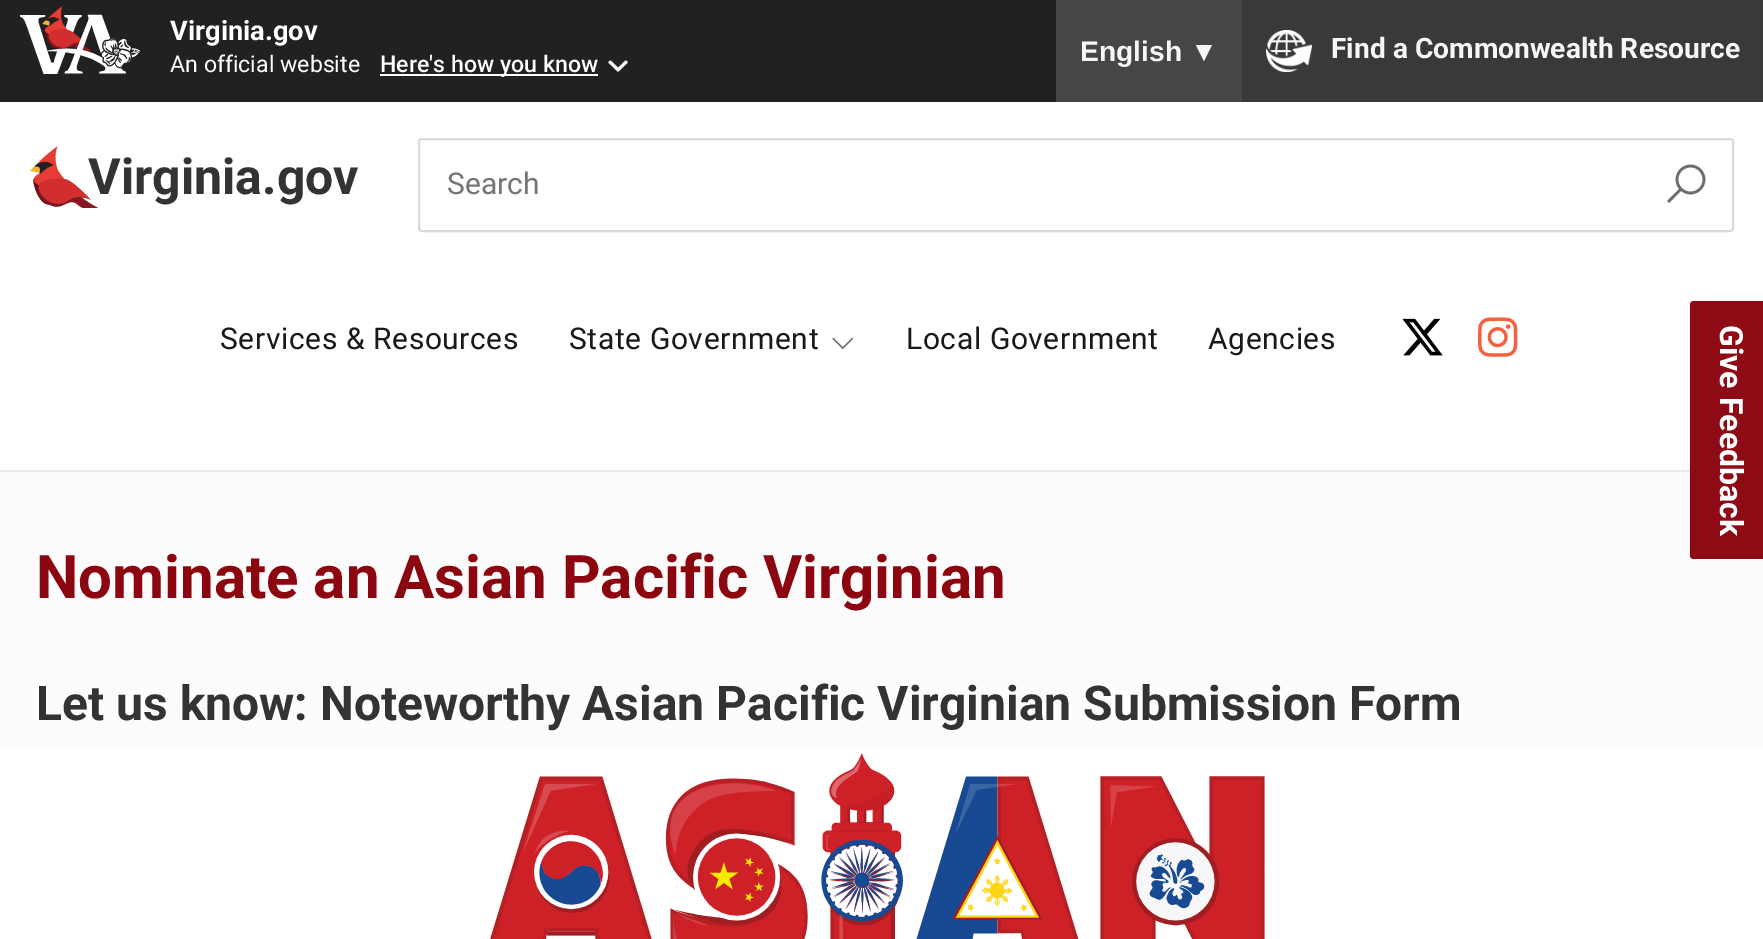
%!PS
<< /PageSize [1763 939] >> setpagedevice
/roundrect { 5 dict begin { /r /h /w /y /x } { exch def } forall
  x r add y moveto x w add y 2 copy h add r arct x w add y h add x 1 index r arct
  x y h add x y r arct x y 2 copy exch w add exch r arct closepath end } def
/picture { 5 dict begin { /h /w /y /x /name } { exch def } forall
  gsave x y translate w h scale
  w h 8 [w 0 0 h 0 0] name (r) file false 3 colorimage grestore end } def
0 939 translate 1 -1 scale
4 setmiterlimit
0.988 setgray
0 0 1763 939 rectfill
0.129 setgray
0 0 1056 102 rectfill
(img1.rgb) 20 6 120 68 picture
/Roboto-Bold [27.25 0 0 -27.25 0 0] selectfont
1 setgray
170 40 moveto (Virginia.gov) show
/Roboto-Regular [23.1 0 0 -23.1 0 0] selectfont
170 72 moveto (An official website) show
380 74 218 2 rectfill
/Roboto-Medium [23.1 0 0 -23.1 0 0] selectfont
380 72 moveto (Here's how you know) show
(img2.rgb) 608 60 20 12 picture
0.275 setgray
1056 0 186 102 rectfill
/LiberationSans-Bold [28.2 0 0 -28.2 0 0] selectfont
0.965 setgray
1080 61 moveto (English ▼) show
0.22 0.224 0.224 setrgbcolor
1242 0 521 102 rectfill
(img3.rgb) 1266 30 46 42 picture
/Roboto-Bold [28.2 0 0 -28.2 0 0] selectfont
0.965 setgray
1331 58 moveto (Find a Commonwealth Resource) show
0.918 0.918 0.933 setrgbcolor
0 470 1690 2 rectfill
1 setgray
0 102 1763 368 rectfill
(img4.rgb) 30 146 68 62 picture
/Roboto-Bold [50 0 0 -50 0 0] selectfont
0.2 0.2 0.204 setrgbcolor
88 194 moveto (Virginia.gov) show
0.855 0.859 0.847 setrgbcolor
2 setlinewidth
419 139 1314 92 3 roundrect stroke
/Roboto-Regular [30 0 0 -30 0 0] selectfont
0.459 setgray
447 194 moveto (Search) show
(img5.rgb) 1667 164 39 39 picture
0.098 0.098 0.102 setrgbcolor
220 349 moveto 0.6 0 (Services & Resources) ashow
569 349 moveto 0.6 0 (State Government) ashow
(img6.rgb) 832 337 22 13 picture
906 349 moveto 0.6 0 (Local Government) ashow
1208 349 moveto 0.6 0 (Agencies) ashow
(img7.rgb) 1402 318 41 38 picture
(img8.rgb) 1478 317 40 40 picture
0.557 0.039 0.078 setrgbcolor
newpath 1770 305 moveto 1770 555 lineto 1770 558 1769 559 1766 559 curveto 1694 559 lineto 1692 559 1690 558 1690 555 curveto 1690 305 lineto 1690 302 1692 301 1694 301 curveto 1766 301 lineto 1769 301 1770 302 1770 305 curveto closepath fill
/Roboto-Bold [32 0 0 -32 0 0] selectfont
1 setgray
gsave 1720 325 translate 90 rotate 0 0 moveto (Give Feedback) show grestore
/Roboto-Bold [60 0 0 -60 0 0] selectfont
0.549 0.024 0.063 setrgbcolor
36 598 moveto (Nominate an Asian Pacific Virginian) show
/Roboto-Bold [48 0 0 -48 0 0] selectfont
0.2 0.2 0.204 setrgbcolor
36 720 moveto (Let us know: Noteworthy Asian Pacific Virginian Submission Form) show
1 setgray
0 746 1763 193 rectfill
(img9.rgb) 490 753 775 186 picture
showpage
